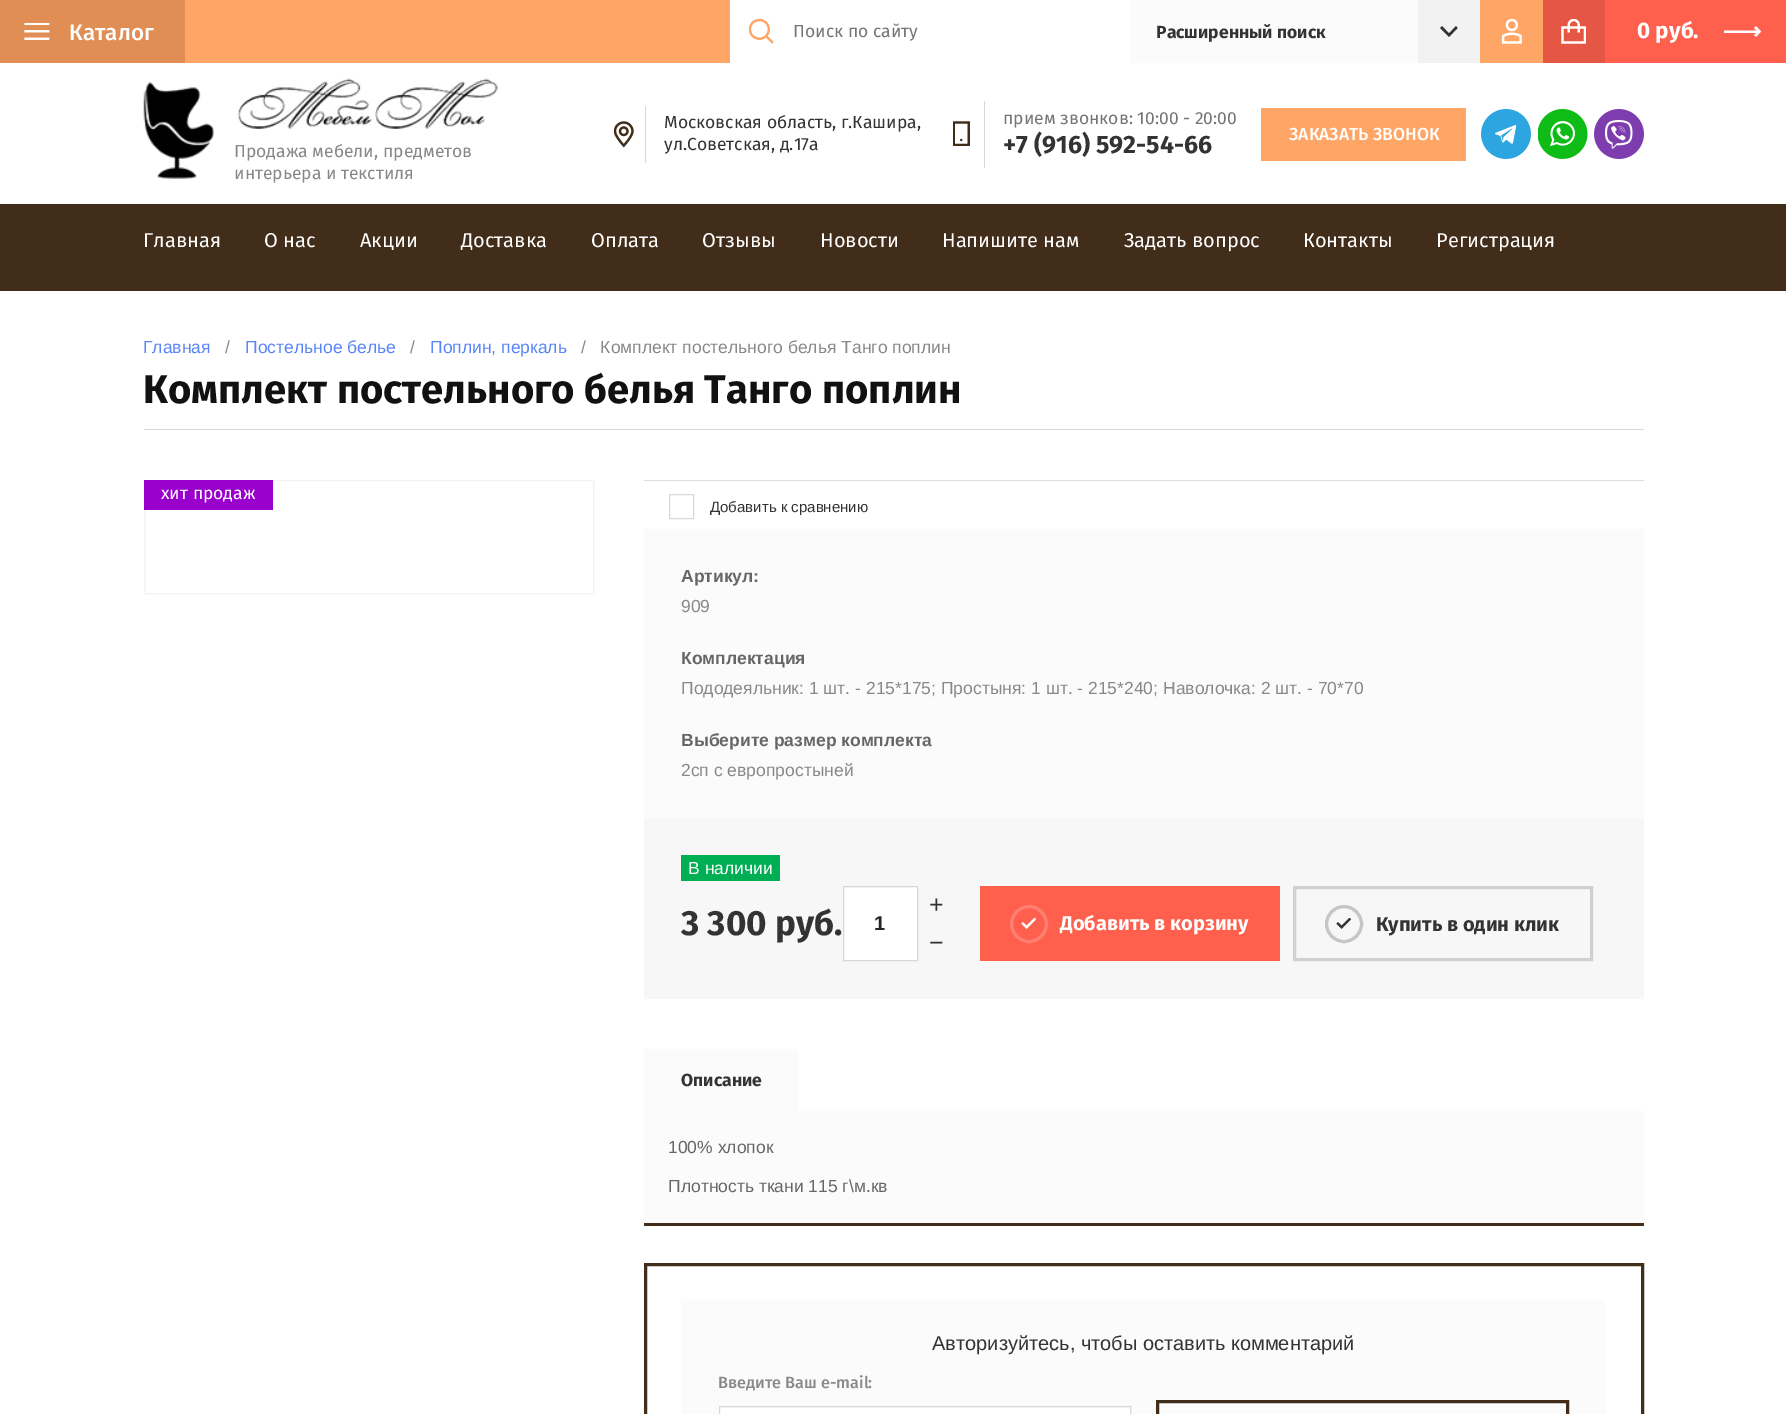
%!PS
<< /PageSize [1786 1414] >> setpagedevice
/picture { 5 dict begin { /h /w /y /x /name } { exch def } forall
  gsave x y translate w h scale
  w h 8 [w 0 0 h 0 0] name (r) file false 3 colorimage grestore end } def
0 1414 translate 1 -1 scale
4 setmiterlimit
1 setgray
0 0 1786 1414 rectfill
0.259 0.176 0.106 setrgbcolor
0 204 1786 87 rectfill
1 0.647 0.396 setrgbcolor
185 0 1358 63 rectfill
0.878 0.557 0.329 setrgbcolor
0 0 185 63 rectfill
(img1.rgb) 24 23 26 17 picture
/FiraSans-Medium [22.5 0 0 -22.5 0 0] selectfont
1 setgray
69 40 moveto (Каталог) show
730 0 400 63 rectfill
(img2.rgb) 749 19 25 25 picture
/FiraSans-Regular [17.5 0 0 -17.5 0 0] selectfont
0.459 setgray
793 37 moveto (Поиск по сайту) show
0.984 setgray
1130 0 288 63 rectfill
/FiraSans-Bold [17.5 0 0 -17.5 0 0] selectfont
0.2 setgray
1156 38 moveto (Расширенный поиск) show
0.949 setgray
1418 0 62 63 rectfill
0.2 setgray
newpath 1449 33.5 moveto 1442 26 lineto 1440 28 lineto 1449 37 lineto 1457.5 28 lineto 1456 26 lineto closepath fill
(img3.rgb) 1501 19 21 25 picture
1 0.373 0.302 setrgbcolor
1605 0 181 63 rectfill
0.902 0.337 0.271 setrgbcolor
1543 0 62 63 rectfill
(img4.rgb) 1561 19 25 25 picture
/FiraSans-Bold [22.5 0 0 -22.5 0 0] selectfont
1 setgray
1637 38 moveto (0 руб.) show
newpath 1724 30.5 moveto 1756.5 30.5 lineto 1754 28 lineto 1756 26 lineto 1761 31.5 lineto 1756 37 lineto 1754 35 lineto 1756.5 33 lineto 1724 33 lineto closepath fill
(img5.rgb) 614 121 20 27 picture
0.847 setgray
645 106 1 57 rectfill
/FiraSans-Regular [17.5 0 0 -17.5 0 0] selectfont
0.2 setgray
664 128 moveto (Московская область, г.Кашира,) show
664 150 moveto (ул.Советская, д.17а) show
(img6.rgb) 953 121 17 25 picture
0.847 setgray
984 101 1 67 rectfill
0.459 setgray
1003 124 moveto (прием звонков: 10:00 - 20:00) show
/FiraSans-Bold [25 0 0 -25 0 0] selectfont
0.2 setgray
1003 153 moveto (+7 \(916\) 592-54-66) show
1 0.647 0.396 setrgbcolor
1261 108 205 53 rectfill
/FiraSans-Medium [17.5 0 0 -17.5 0 0] selectfont
1 setgray
1289 140 moveto (ЗАКАЗАТЬ ЗВОНОК) show
(img7.rgb) 1481 109 50 50 picture
(img8.rgb) 1538 109 50 50 picture
(img9.rgb) 1594 109 50 50 picture
(img10.rgb) 143 82 71 97 picture
(img11.rgb) 237 78 261 51 picture
/FiraSans-Regular [17.5 0 0 -17.5 0 0] selectfont
0.533 setgray
234 157 moveto (Продажа мебели, предметов) show
234 179 moveto (интерьера и текстиля) show
/FiraSans-Regular [20 0 0 -20 0 0] selectfont
1 setgray
143 247 moveto (Главная) show
264 247 moveto (О нас) show
360 247 moveto (Акции) show
461 247 moveto (Доставка) show
591 247 moveto (Оплата) show
702 247 moveto (Отзывы) show
820 247 moveto (Новости) show
942 247 moveto (Напишите нам) show
1124 247 moveto (Задать вопрос) show
1303 247 moveto (Контакты) show
1436 247 moveto (Регистрация) show
0.847 setgray
144 429 1500 1 rectfill
/LiberationSans-Regular [17.5 0 0 -17.5 0 0] selectfont
0.345 0.522 0.969 setrgbcolor
143 353 moveto (Главная) show
0.533 setgray
225 353 moveto (/) show
0.345 0.522 0.969 setrgbcolor
245 353 moveto (Постельное белье) show
0.533 setgray
410 353 moveto (/) show
0.345 0.522 0.969 setrgbcolor
430 353 moveto (Поплин, перкаль) show
0.533 setgray
581 353 moveto (/   Комплект постельного белья Танго поплин) show
/FiraSans-Bold [40 0 0 -40 0 0] selectfont
0.067 setgray
143 403 moveto (Комплект постельного белья Танго поплин) show
0.953 setgray
144.5 480.5 449 113 rectstroke
0.6 0 0.8 setrgbcolor
144 480 129 30 rectfill
/FiraSans-Regular [17.5 0 0 -17.5 0 0] selectfont
1 setgray
161 499 moveto (хит продаж) show
0.871 setgray
644 480 1000 1 rectfill
0.851 setgray
669.5 494.5 24 24 rectstroke
/LiberationSans-Regular [15 0 0 -15 0 0] selectfont
0.2 setgray
710 512 moveto (Добавить к сравнению) show
0.984 setgray
644 529 1000 289 rectfill
/LiberationSans-Bold [17.5 0 0 -17.5 0 0] selectfont
0.4 setgray
681 582 moveto (Артикул:) show
/LiberationSans-Regular [17.5 0 0 -17.5 0 0] selectfont
0.533 setgray
681 612 moveto (909) show
/LiberationSans-Bold [17.5 0 0 -17.5 0 0] selectfont
0.4 setgray
681 664 moveto (Комплектация) show
/LiberationSans-Regular [17.5 0 0 -17.5 0 0] selectfont
0.533 setgray
681 694 moveto (Пододеяльник: 1 шт. - 215*175; Простыня: 1 шт. - 215*240; Наволочка: 2 шт. - 70*70) show
/LiberationSans-Bold [17.5 0 0 -17.5 0 0] selectfont
0.4 setgray
681 746 moveto (Выберите размер комплекта) show
/LiberationSans-Regular [17.5 0 0 -17.5 0 0] selectfont
0.533 setgray
681 776 moveto (2сп с европростыней) show
0.969 setgray
644 818 1000 181 rectfill
0 0.686 0.325 setrgbcolor
681 855 99 26 rectfill
1 setgray
688 874 moveto (В наличии) show
/FiraSans-Bold [35 0 0 -35 0 0] selectfont
0.2 setgray
681 935 moveto (3 300 руб.) show
/LiberationSans-Regular [25 0 0 -25 0 0] selectfont
929 913 moveto (+) show
1 setgray
newpath 843.5 886.5 moveto 917.5 886.5 lineto 917.5 960.5 lineto 843.5 960.5 lineto closepath gsave fill grestore
0.847 setgray
stroke
/LiberationSans-Bold [20 0 0 -20 0 0] selectfont
0.149 setgray
874 930 moveto (1) show
/LiberationSans-Regular [25 0 0 -25 0 0] selectfont
0.2 setgray
929 951 moveto (−) show
1 0.373 0.302 setrgbcolor
980 886 300 75 rectfill
(img12.rgb) 1021 918 15 11 picture
1 0.498 0.443 setrgbcolor
3 setlinewidth
newpath 1029 924 17.5 0 360 arc closepath stroke
/FiraSans-Bold [20 0 0 -20 0 0] selectfont
1 setgray
1060 930 moveto (Добавить в корзину) show
0.816 setgray
1294.5 887.5 297 72 rectstroke
(img13.rgb) 1336 918 15 11 picture
0.773 setgray
newpath 1344 924 17.5 0 360 arc closepath stroke
0.2 setgray
1376 931 moveto (Купить в один клик) show
0.984 setgray
644 1049 155 62 rectfill
/FiraSans-Bold [17.5 0 0 -17.5 0 0] selectfont
0.2 setgray
681 1086 moveto (Описание) show
0.984 setgray
644 1111 1000 112 rectfill
0.259 0.176 0.106 setrgbcolor
644 1223 1000 3 rectfill
/LiberationSans-Regular [17.5 0 0 -17.5 0 0] selectfont
0.4 setgray
668 1153 moveto (100% хлопок) show
668 1192 moveto (Плотность ткани 115 г\\м.кв) show
0.259 0.176 0.106 setrgbcolor
645.5 1264.5 997 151 rectstroke
0.984 setgray
681 1300 925 114 rectfill
/LiberationSans-Regular [20 0 0 -20 0 0] selectfont
0.2 setgray
932 1350 moveto (Авторизуйтесь, чтобы оставить комментарий) show
/FiraSans-Medium [16.25 0 0 -16.25 0 0] selectfont
0.533 setgray
718 1388 moveto (Введите Ваш e-mail:) show
1 setgray
newpath 719.5 1406.5 moveto 1130.5 1406.5 lineto 1130.5 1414.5 lineto 719.5 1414.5 lineto closepath gsave fill grestore
0.847 setgray
1 setlinewidth
stroke
0.259 0.176 0.106 setrgbcolor
3 setlinewidth
1157.5 1401.5 410 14 rectstroke
showpage
